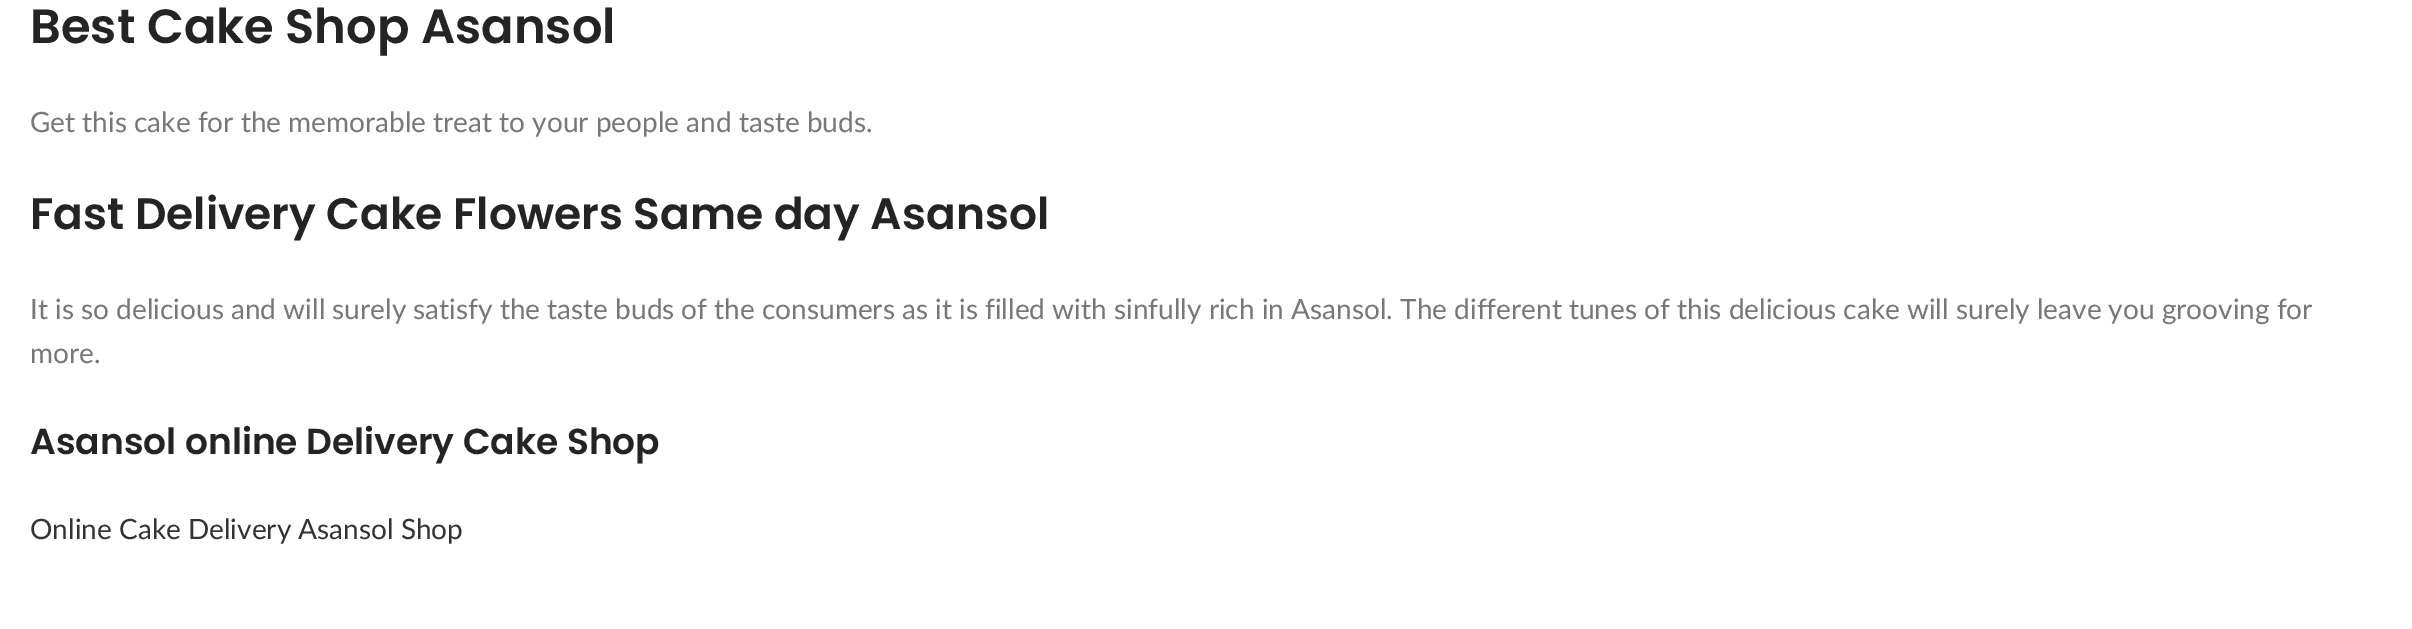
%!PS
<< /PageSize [2412 629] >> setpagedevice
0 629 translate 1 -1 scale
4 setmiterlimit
1 setgray
0 0 2412 629 rectfill
/Poppins-SemiBold [48 0 0 -48 0 0] selectfont
0.141 setgray
30 43 moveto (Best Cake Shop Asansol) show
/Lato-Regular [28 0 0 -28 0 0] selectfont
0.467 setgray
30 132 moveto (Get this cake for the memorable treat to your people and taste buds.) show
/Poppins-SemiBold [44 0 0 -44 0 0] selectfont
0.141 setgray
30 229 moveto (Fast Delivery Cake Flowers Same day Asansol) show
/Lato-Regular [28 0 0 -28 0 0] selectfont
0.467 setgray
30 319 moveto (It is so delicious and will surely satisfy the taste buds of the consumers as it is filled with sinfully rich in Asansol. The different tunes of this delicious cake will surely leave you grooving for) show
30 363 moveto (more.) show
/Poppins-SemiBold [36 0 0 -36 0 0] selectfont
0.141 setgray
30 454 moveto (Asansol online Delivery Cake Shop) show
/Lato-Regular [28 0 0 -28 0 0] selectfont
0.2 setgray
30 539 moveto (Online Cake Delivery Asansol Shop) show
showpage
